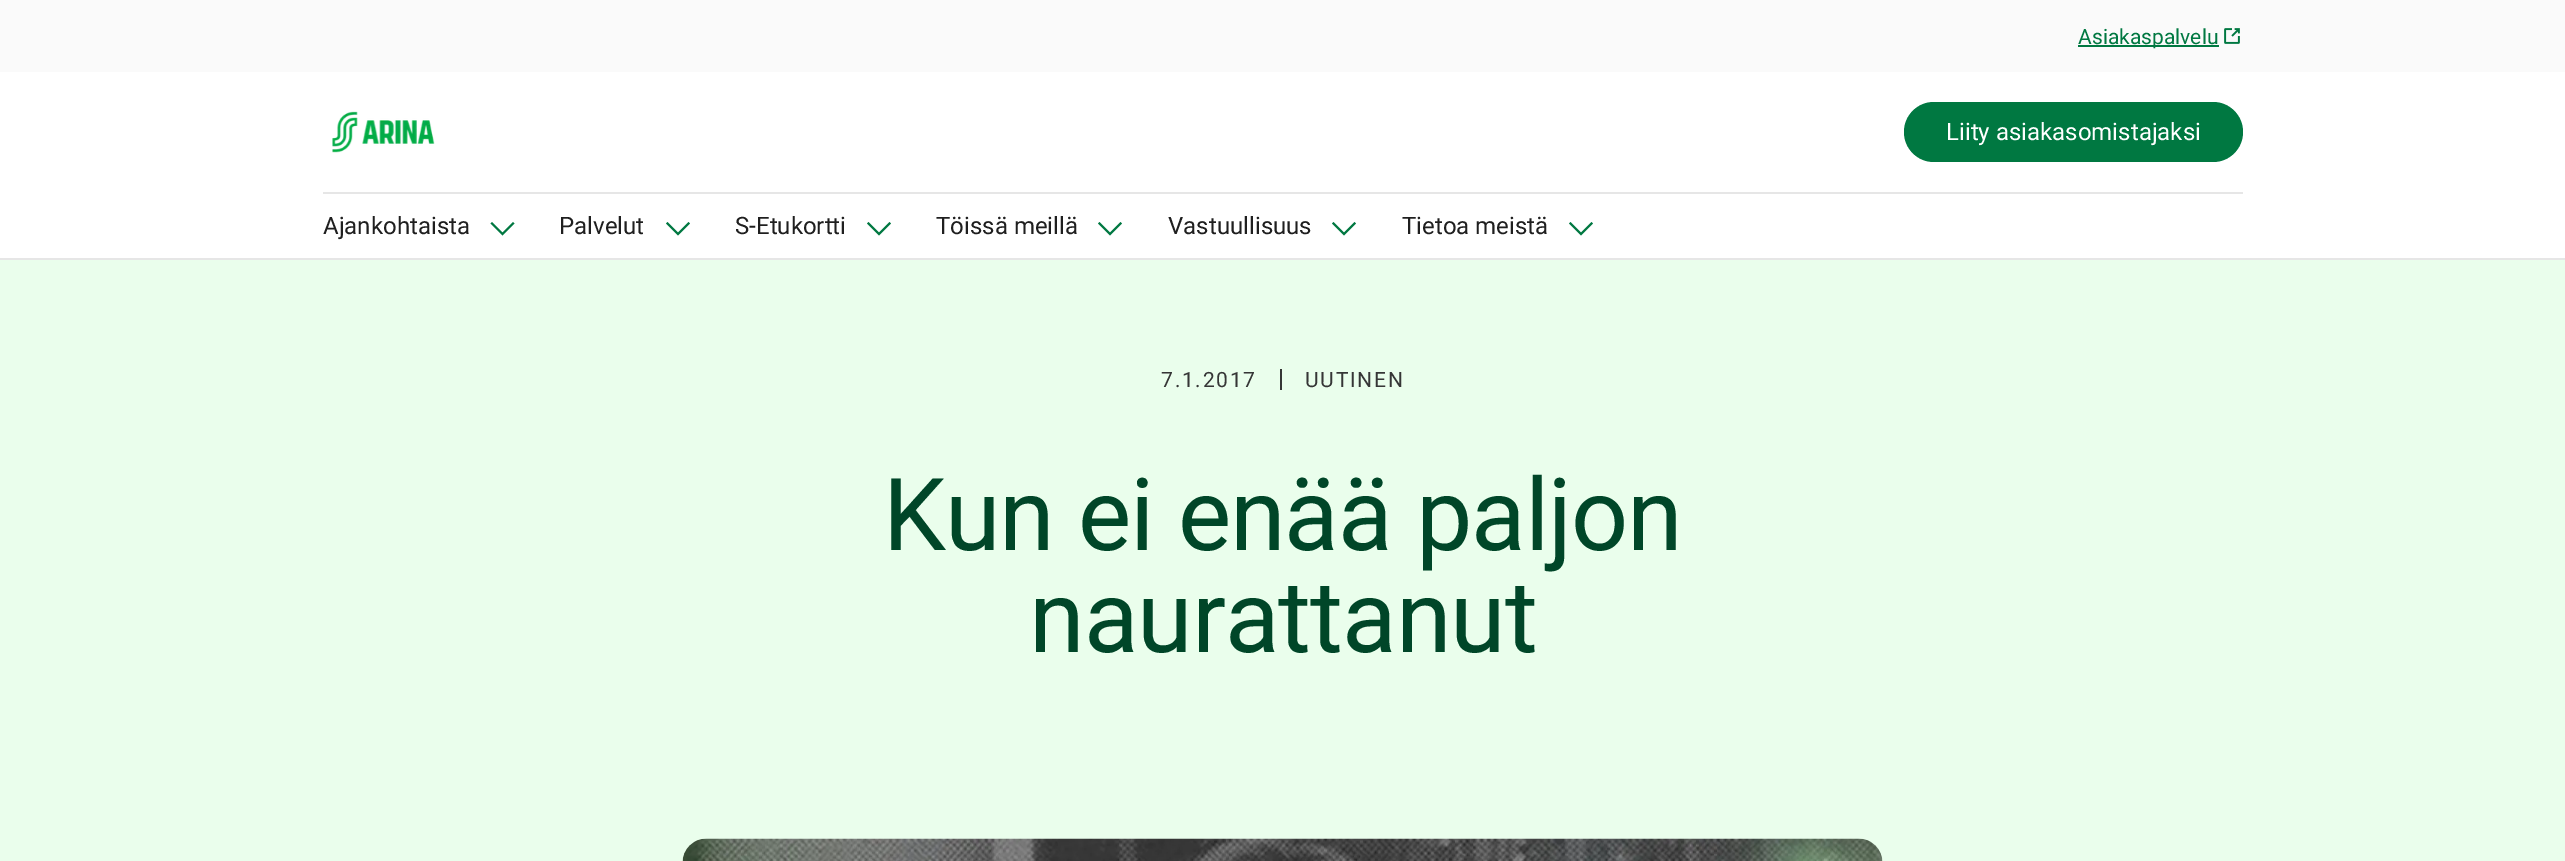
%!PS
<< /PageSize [2565 861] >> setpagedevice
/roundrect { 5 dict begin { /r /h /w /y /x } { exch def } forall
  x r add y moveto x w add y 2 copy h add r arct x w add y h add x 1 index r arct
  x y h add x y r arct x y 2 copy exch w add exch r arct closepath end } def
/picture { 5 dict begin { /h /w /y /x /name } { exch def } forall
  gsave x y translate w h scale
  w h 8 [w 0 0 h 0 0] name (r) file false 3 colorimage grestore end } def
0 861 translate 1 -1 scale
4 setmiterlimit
1 setgray
0 0 2565 861 rectfill
0.902 setgray
0 258 2565 2 rectfill
0.98 setgray
0 0 2565 72 rectfill
0 0.471 0.255 setrgbcolor
2078 45 141 2 rectfill
/Roboto-Regular [21 0 0 -21 0 0] selectfont
2078 44 moveto (Asiakaspalvelu) show
(img1.rgb) 2224 28 16 16 picture
(img2.rgb) 332 111 103 42 picture
1904 102 339 60 30 roundrect fill
/Roboto-Regular [24 0 0 -24 0 0] selectfont
1 setgray
1946 140 moveto (Liity asiakasomistajaksi) show
0.902 setgray
323 192 1920 2 rectfill
0.122 setgray
323 234 moveto (Ajankohtaista) show
0 0.471 0.255 setrgbcolor
newpath 502.5 232.5 moveto 513 222 lineto 514.5 223.5 lineto 502.5 235.5 lineto 490.5 223.5 lineto 492 222 lineto closepath eofill
0.122 setgray
559 234 moveto (Palvelut) show
0 0.471 0.255 setrgbcolor
newpath 678 232.5 moveto 688.5 222 lineto 690 223.5 lineto 678 235.5 lineto 666 223.5 lineto 667.5 222 lineto closepath eofill
0.122 setgray
735 234 moveto (S-Etukortti) show
0 0.471 0.255 setrgbcolor
newpath 879 232.5 moveto 889.5 222 lineto 891 223.5 lineto 879 235.5 lineto 867 223.5 lineto 868.5 222 lineto closepath eofill
0.122 setgray
936 234 moveto (Töissä meillä) show
0 0.471 0.255 setrgbcolor
newpath 1110 232.5 moveto 1120.5 222 lineto 1122 223.5 lineto 1110 235.5 lineto 1098 223.5 lineto 1099.5 222 lineto closepath eofill
0.122 setgray
1168 234 moveto (Vastuullisuus) show
0 0.471 0.255 setrgbcolor
newpath 1344 232.5 moveto 1354.5 222 lineto 1356 223.5 lineto 1344 235.5 lineto 1332 223.5 lineto 1333.5 222 lineto closepath eofill
0.122 setgray
1402 234 moveto (Tietoa meistä) show
0 0.471 0.255 setrgbcolor
newpath 1581 232.5 moveto 1591.5 222 lineto 1593 223.5 lineto 1581 235.5 lineto 1569 223.5 lineto 1570.5 222 lineto closepath eofill
0.918 0.996 0.925 setrgbcolor
0 260 2565 601 rectfill
/Roboto-Regular [21 0 0 -21 0 0] selectfont
0.212 setgray
1161 387 moveto 1.75 0 (7.1.2017) ashow
1280 369 2 21 rectfill
1305 387 moveto 1.75 0 (UUTINEN) ashow
/Roboto-Regular [100.5 0 0 -100.5 0 0] selectfont
0 0.275 0.157 setrgbcolor
883 550 moveto -1 0 (Kun ei enää paljon) ashow
1029 652 moveto -1 0 (naurattanut) ashow
(img3.rgb) 682 838 1201 23 picture
showpage
